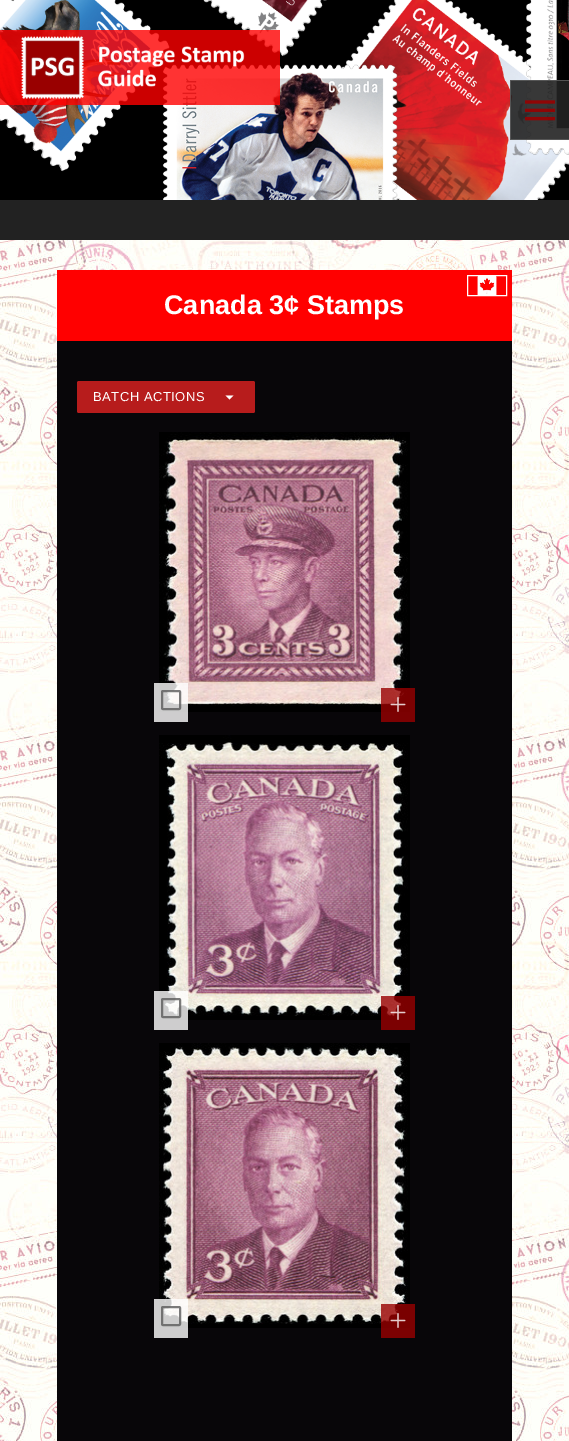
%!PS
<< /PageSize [569 1441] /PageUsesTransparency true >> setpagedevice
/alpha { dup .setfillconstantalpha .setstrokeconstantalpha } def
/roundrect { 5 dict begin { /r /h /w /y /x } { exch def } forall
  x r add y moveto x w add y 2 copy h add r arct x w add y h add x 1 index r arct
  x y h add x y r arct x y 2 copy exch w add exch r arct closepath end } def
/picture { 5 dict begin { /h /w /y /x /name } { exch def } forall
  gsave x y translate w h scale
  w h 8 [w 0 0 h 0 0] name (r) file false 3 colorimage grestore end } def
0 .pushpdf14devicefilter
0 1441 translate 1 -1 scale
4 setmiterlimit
1 setgray
0 0 569 1441 rectfill
(img1.rgb) 0 240 569 1201 picture
(img2.rgb) 0 0 569 200 picture
0.8 alpha
1 0 0 setrgbcolor
0 30 280 75 rectfill
1 alpha
(img3.rgb) 21 36 224 63 picture
0.133 setgray
0 200 569 40 rectfill
0.9 alpha
510 80 59 60 rectfill
0.349 setgray
510 80 59 1 rectfill
510 139 59 1 rectfill
510 80 1 60 rectfill
1 alpha
(img4.rgb) 525 100 30 21 picture
1 0 0 setrgbcolor
57 270 455 71 rectfill
1 setgray
467.5 275.5 39 20 rectstroke
(img5.rgb) 477 276 20 19 picture
/LiberationSans-Bold [27 0 0 -27 0 0] selectfont
164 314 moveto (Canada 3¢ Stamps) show
0.031 0.024 0.035 setrgbcolor
57 341 455 1100 rectfill
0.718 0.11 0.11 setrgbcolor
77 381 178 32 2 roundrect fill
/LiberationSans-Regular [13 0 0 -13 0 0] selectfont
1 setgray
93 401 moveto 0.5 0 (BATCH ACTIONS) ashow
newpath 225.5 395.5 moveto 233.5 395.5 lineto 229.5 399.5 lineto closepath fill
(img6.rgb) 159 432 251 280 picture
0.8 alpha
154 683 34 39 rectfill
0.353 setgray
2 setlinewidth
162 691 18 18 1 roundrect stroke
0.6 0 0 setrgbcolor
381 688 34 34 rectfill
1 alpha
(img7.rgb) 390 697 16 15 picture
(img8.rgb) 159 735 251 285 picture
0.8 alpha
1 setgray
154 991 34 39 rectfill
0.353 setgray
162 999 18 18 1 roundrect stroke
0.6 0 0 setrgbcolor
381 996 34 34 rectfill
1 alpha
(img9.rgb) 390 1005 16 15 picture
(img10.rgb) 159 1043 251 285 picture
0.8 alpha
1 setgray
154 1299 34 39 rectfill
0.353 setgray
162 1307 18 18 1 roundrect stroke
0.6 0 0 setrgbcolor
381 1304 34 34 rectfill
1 alpha
(img11.rgb) 390 1313 16 15 picture
.poppdf14devicefilter showpage
